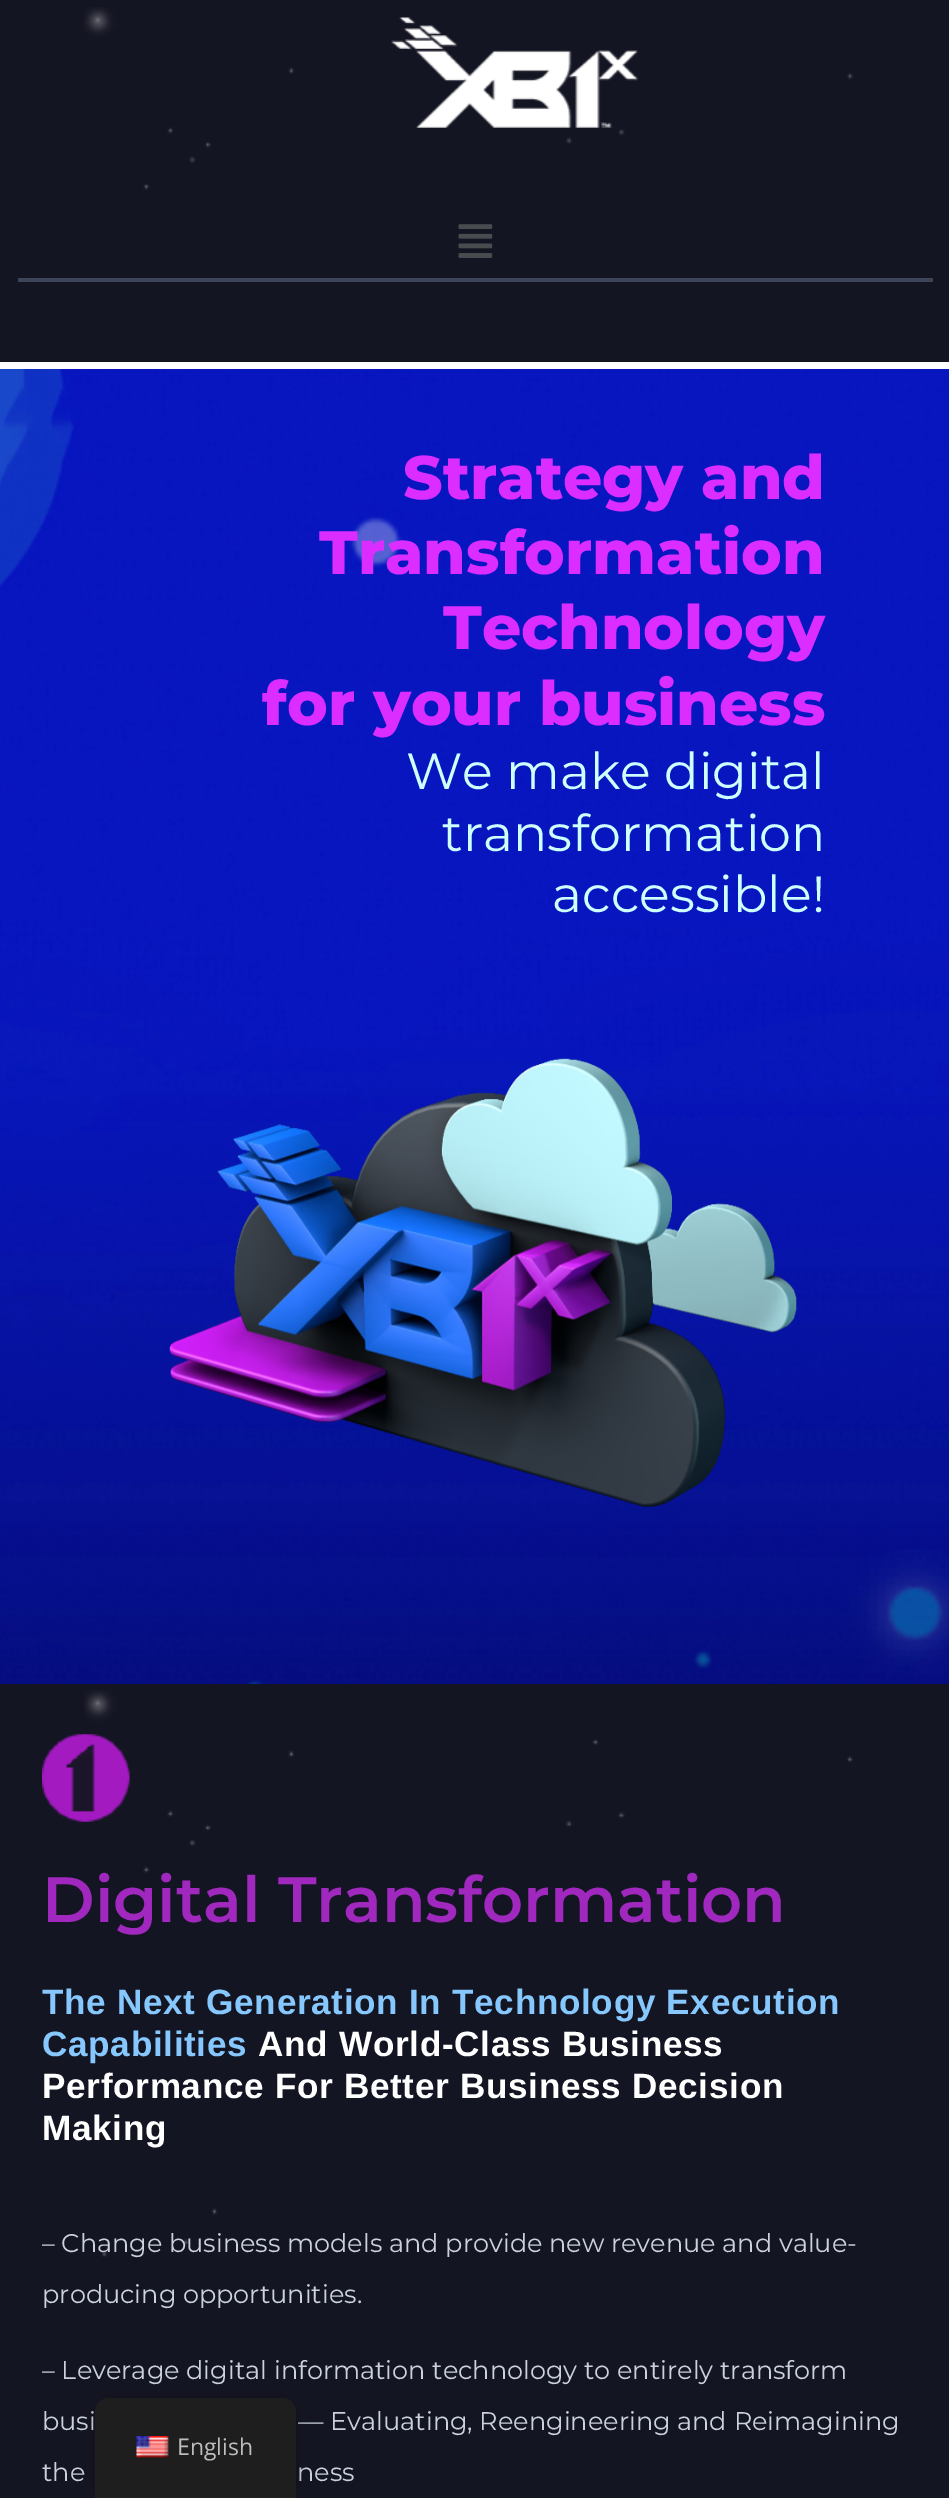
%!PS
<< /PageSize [949 2498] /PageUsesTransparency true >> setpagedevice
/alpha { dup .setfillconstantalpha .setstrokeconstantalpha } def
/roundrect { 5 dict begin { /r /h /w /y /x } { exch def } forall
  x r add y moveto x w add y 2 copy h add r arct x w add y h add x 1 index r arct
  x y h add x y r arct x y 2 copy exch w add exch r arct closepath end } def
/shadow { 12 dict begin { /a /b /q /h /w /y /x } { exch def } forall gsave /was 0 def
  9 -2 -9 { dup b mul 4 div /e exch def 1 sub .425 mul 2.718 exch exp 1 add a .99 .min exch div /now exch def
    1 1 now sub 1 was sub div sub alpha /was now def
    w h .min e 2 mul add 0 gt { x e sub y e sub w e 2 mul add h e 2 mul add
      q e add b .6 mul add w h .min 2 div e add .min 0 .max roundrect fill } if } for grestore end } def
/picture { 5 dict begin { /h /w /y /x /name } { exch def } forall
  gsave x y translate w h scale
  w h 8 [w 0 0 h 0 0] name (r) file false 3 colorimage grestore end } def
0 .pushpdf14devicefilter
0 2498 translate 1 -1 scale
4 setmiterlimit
1 setgray
0 0 949 2498 rectfill
0.078 0.082 0.133 setrgbcolor
0 0 949 362 rectfill
(img1.rgb) 84 7 769 183 picture
(img2.rgb) 391 17 247 111 picture
(img3.rgb) 458 224 35 34 picture
0.231 0.267 0.349 setrgbcolor
18 278 915 4 rectfill
(img4.rgb) 0 369 949 1315 picture
/Montserrat-ExtraBold [61.25 0 0 -61.25 0 0] selectfont
0.859 0.176 1 setrgbcolor
403 499 moveto (Strategy and) show
319 574 moveto (Transformation) show
443 649 moveto (Technology) show
262 725 moveto (for your business) show
/Montserrat-Regular [50.75 0 0 -50.75 0 0] selectfont
0.804 1 1 setrgbcolor
406 789 moveto (We make digital) show
442 851 moveto (transformation) show
552 912 moveto (accessible!) show
(img5.rgb) 169 1058 628 449 picture
0.078 0.082 0.133 setrgbcolor
0 1684 949 814 rectfill
(img6.rgb) 84 1690 769 567 picture
(img7.rgb) 42 1734 88 88 picture
/Montserrat-SemiBold [63.8 0 0 -63.8 0 0] selectfont
0.631 0.157 0.745 setrgbcolor
42 1922 moveto (Digital Transformation) show
/LiberationSans-Bold [35.1 0 0 -35.1 0 0] selectfont
0.525 0.78 0.992 setrgbcolor
42 2014 moveto 0.7 0 (The Next Generation In Technology Execution) ashow
42 2056 moveto 0.7 0 (Capabilities) ashow
1 setgray
258 2056 moveto 0.7 0 (And World-Class Business) ashow
42 2098 moveto 0.7 0 (Performance For Better Business Decision) ashow
42 2140 moveto 0.7 0 (Making) ashow
/Montserrat-Regular [25.55 0 0 -25.55 0 0] selectfont
0.796 0.824 0.871 setrgbcolor
42 2252 moveto (– Change business models and provide new revenue and value-) show
42 2303 moveto (producing opportunities.) show
42 2379 moveto (– Leverage digital information technology to entirely transform) show
42 2430 moveto (busi) show
298 2430 moveto (— Evaluating, Reengineering and Reimagining) show
42 2481 moveto (the) show
297 2481 moveto (ness) show
0 setgray
95 2398 201 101 14 7 0.25 shadow
0.118 setgray
newpath 109 2398 moveto 282 2398 lineto 289.5 2398 296 2404.5 296 2412 curveto 296 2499 lineto 95 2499 lineto 95 2412 lineto 95 2404.5 101.5 2398 109 2398 curveto closepath fill
(img8.rgb) 136 2436 33 22 picture
/OpenSans-Regular [23 0 0 -23 0 0] selectfont
0.741 setgray
177 2455 moveto (English) show
.poppdf14devicefilter showpage
